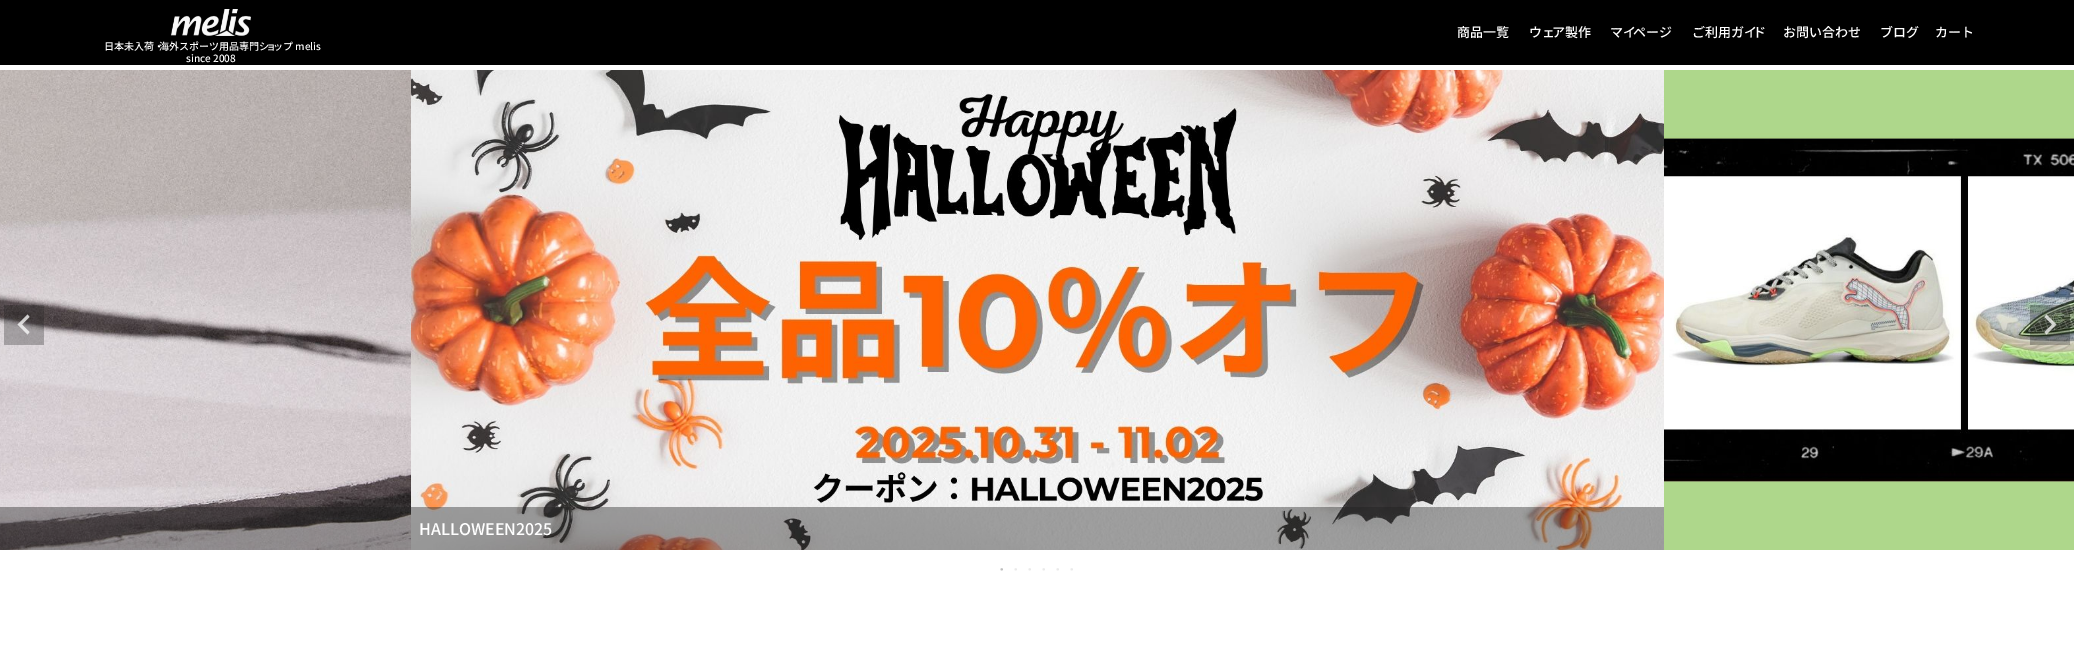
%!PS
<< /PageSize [2074 645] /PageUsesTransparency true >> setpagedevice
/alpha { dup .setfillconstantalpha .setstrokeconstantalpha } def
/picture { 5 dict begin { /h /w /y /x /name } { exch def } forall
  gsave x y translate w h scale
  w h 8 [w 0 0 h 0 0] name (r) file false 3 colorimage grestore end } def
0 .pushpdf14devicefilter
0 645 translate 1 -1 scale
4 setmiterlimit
1 setgray
0 0 2074 645 rectfill
0 setgray
0 0 2074 65 rectfill
/NotoSansJP-Medium [13 0 0 -13 0 0] selectfont
1 setgray
1457 37 moveto (商品一覧) show
1529 37 moveto (ウェ) show
1552 37 moveto (ア製作) show
1610 37 moveto (マイ) show
1633 37 moveto (ページ) show
1692 37 moveto (ご利用ガイ) show
1753 37 moveto (ド) show
1783 37 moveto (お問い合わせ) show
1880 37 moveto (ブログ) show
1935 37 moveto (カート) show
(img1.rgb) 170 9 81 27 picture
/NotoSansJP-Medium [10 0 0 -10 0 0] selectfont
104 50 moveto (日本未入荷・) show
159 50 moveto (海外スポーツ用品専門シ) show
266 50 moveto (ョ) show
273 50 moveto (ップ melis) show
186 62 moveto (since 2008) show
(img2.rgb) 0 70 411 480 picture
0.3 alpha
0.118 setgray
4 305 40 40 rectfill
0.75 alpha
1 setgray
newpath 29.5 317 moveto 27.5 314.5 lineto 17.5 324.5 lineto 27.5 334.5 lineto 29.5 332 lineto 22 324.5 lineto closepath fill
1 alpha
(img4.rgb) 1664 70 410 480 picture
0.3 alpha
0.118 setgray
2030 305 40 40 rectfill
0.75 alpha
1 setgray
newpath 2046.5 314.5 moveto 2044.5 317 lineto 2052 324.5 lineto 2044.5 332 lineto 2046.5 334.5 lineto 2056.5 324.5 lineto closepath fill
0.4 alpha
0.118 setgray
0 507 411 43 rectfill
1 alpha
(img3.rgb) 411 70 1253 480 picture
0.4 alpha
411 507 1253 43 rectfill
/NotoSansJP-Medium [16 0 0 -16 0 0] selectfont
1 alpha
1 setgray
419 535 moveto (HALLOWEEN2025) show
/LiberationSerif-Regular [6 0 0 -6 0 0] selectfont
0.749 setgray
1000 571 moveto (●) show
0.918 setgray
1014 571 moveto (●) show
1028 571 moveto (●) show
1042 571 moveto (●) show
1056 571 moveto (●) show
1070 571 moveto (●) show
.poppdf14devicefilter showpage
